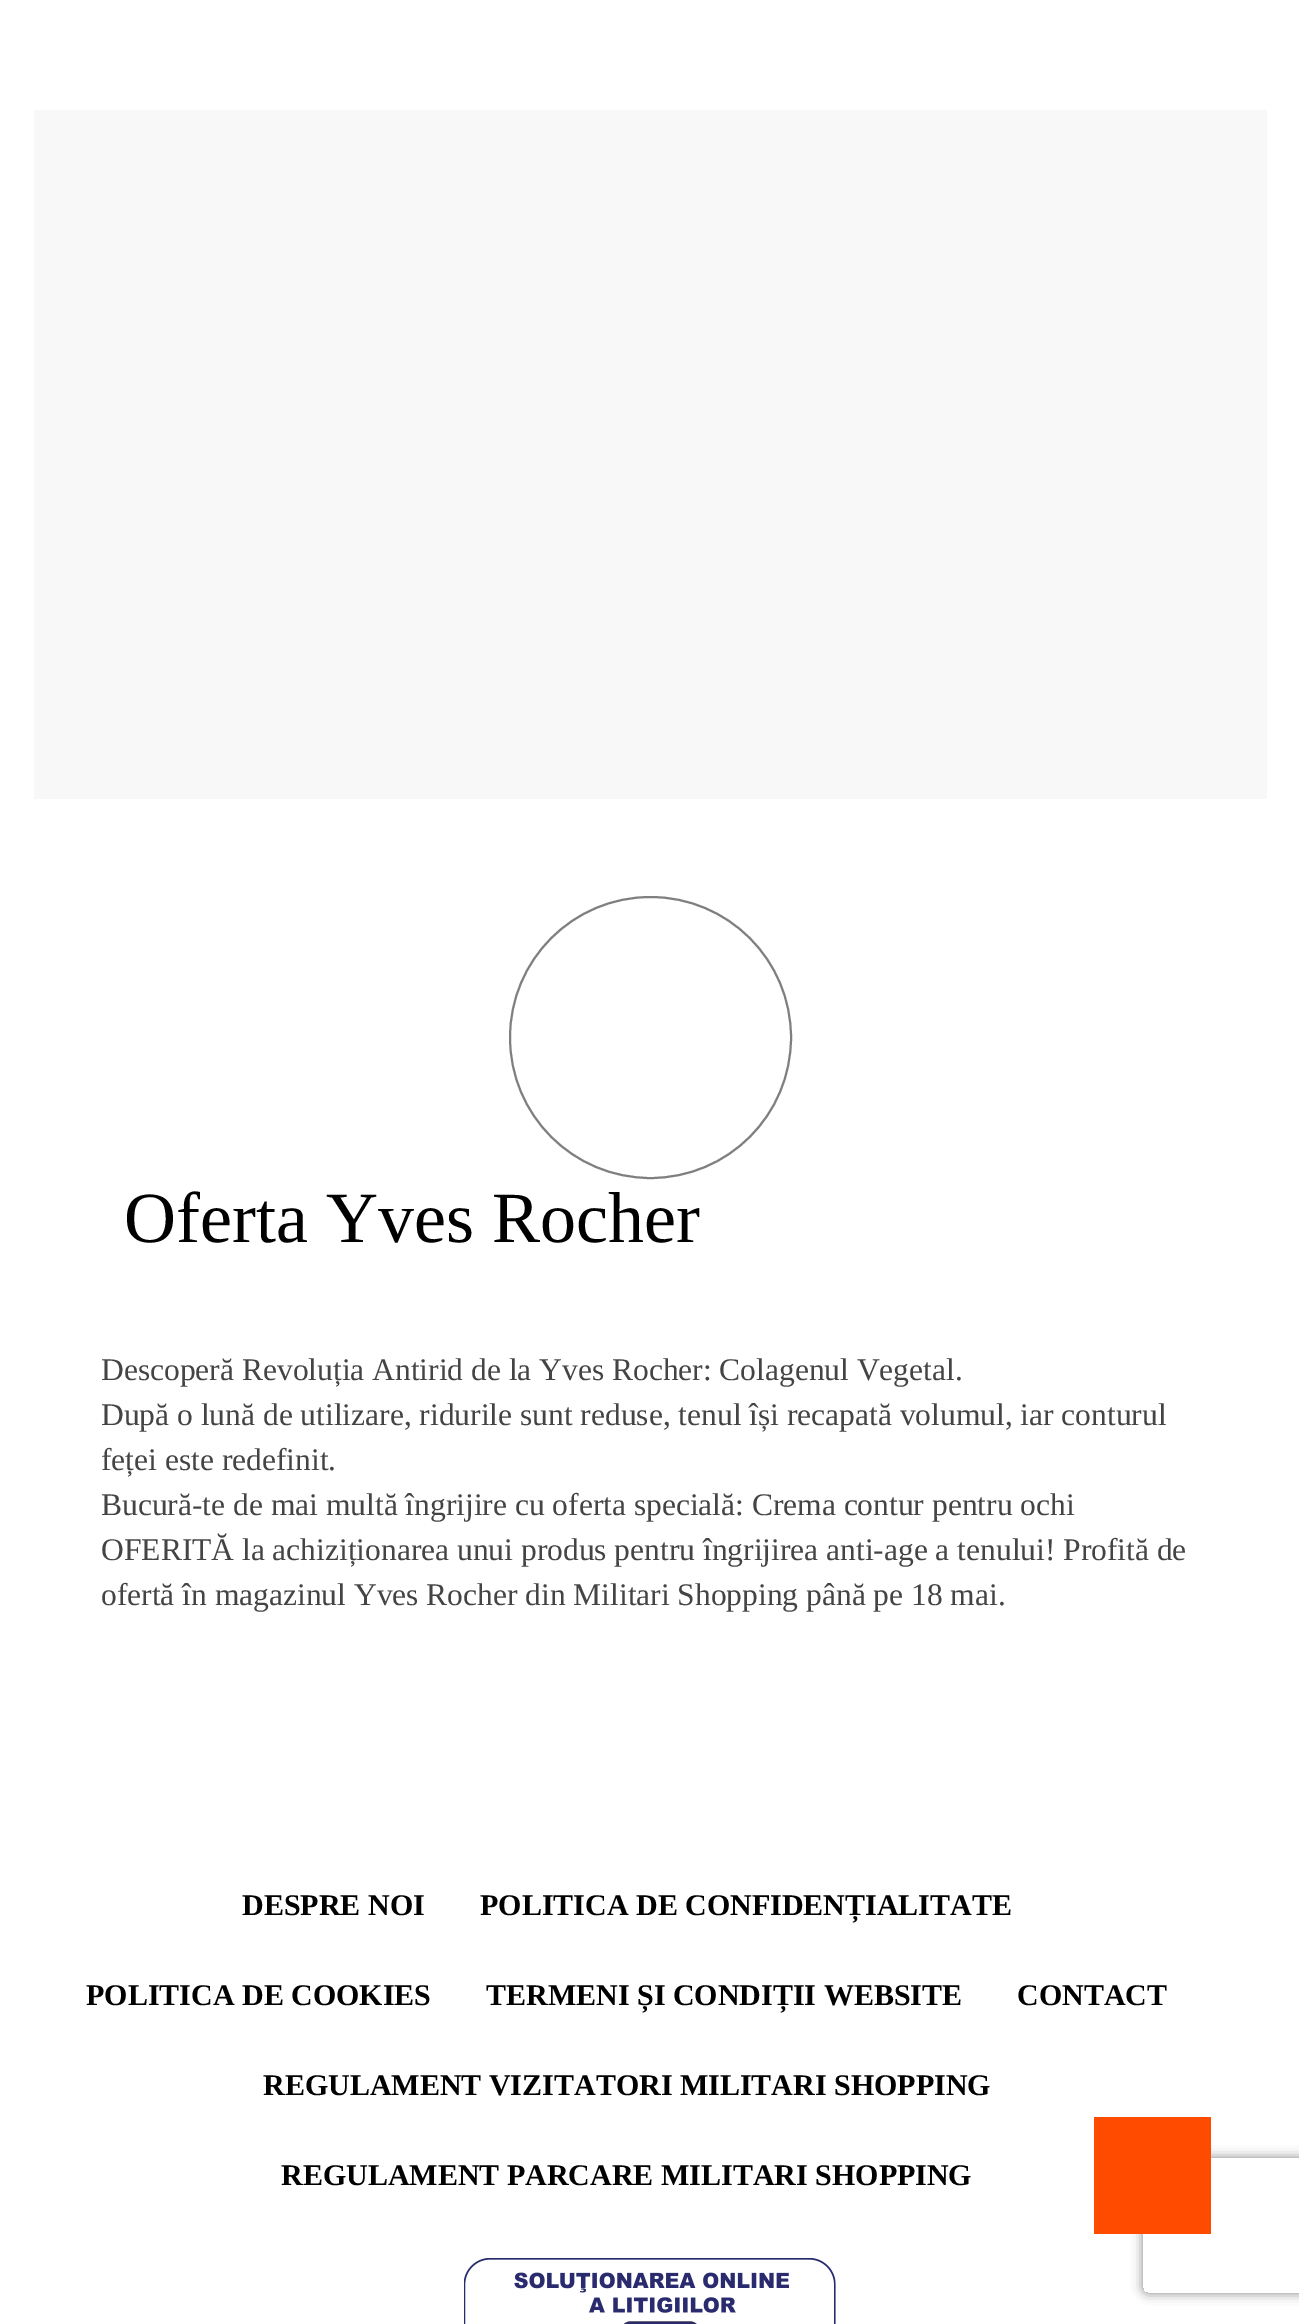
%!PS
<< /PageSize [1299 2324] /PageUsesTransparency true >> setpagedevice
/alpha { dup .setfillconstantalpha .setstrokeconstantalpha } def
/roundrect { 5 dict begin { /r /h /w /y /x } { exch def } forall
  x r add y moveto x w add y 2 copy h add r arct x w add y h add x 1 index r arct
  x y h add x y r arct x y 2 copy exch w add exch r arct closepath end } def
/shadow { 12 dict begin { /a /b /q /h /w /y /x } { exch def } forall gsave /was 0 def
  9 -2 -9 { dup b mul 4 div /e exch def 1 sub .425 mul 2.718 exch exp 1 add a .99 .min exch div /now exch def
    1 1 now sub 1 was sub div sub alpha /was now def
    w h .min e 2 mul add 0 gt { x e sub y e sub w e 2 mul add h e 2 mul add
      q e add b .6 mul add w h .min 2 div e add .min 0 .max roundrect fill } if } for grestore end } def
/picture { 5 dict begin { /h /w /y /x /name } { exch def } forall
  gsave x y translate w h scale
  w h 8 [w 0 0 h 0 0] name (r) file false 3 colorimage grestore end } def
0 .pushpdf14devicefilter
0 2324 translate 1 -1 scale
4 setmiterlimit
1 setgray
0 0 1299 2324 rectfill
0.973 setgray
34 110 1233 689 rectfill
0.498 setgray
2 setlinewidth
newpath 650.5 1037.5 140.5 0 360 arc closepath stroke
/LiberationSerif-Regular [72 0 0 -72 0 0] selectfont
0 setgray
124 1242 moveto (Oferta Yves Rocher) show
/LiberationSerif-Regular [31.5 0 0 -31.5 0 0] selectfont
0.267 setgray
101 1380 moveto (Descoperă Revoluția Antirid de la Yves Rocher: Colagenul Vegetal.) show
101 1425 moveto (După o lună de utilizare, ridurile sunt reduse, tenul își recapată volumul, iar conturul) show
101 1470 moveto (feței este redefinit.) show
101 1515 moveto (Bucură-te de mai multă îngrijire cu oferta specială: Crema contur pentru ochi) show
101 1560 moveto (OFERITĂ la achiziționarea unui produs pentru îngrijirea anti-age a tenului! Profită de) show
101 1605 moveto (ofertă în magazinul Yves Rocher din Militari Shopping până pe 18 mai.) show
/LiberationSerif-Bold [30 0 0 -30 0 0] selectfont
0 setgray
242 1915 moveto (DESPRE NOI) show
480 1915 moveto (POLITICA DE CONFIDENȚIALITATE) show
86 2005 moveto (POLITICA DE COOKIES) show
486 2005 moveto (TERMENI ȘI CONDIȚII WEBSITE) show
1017 2005 moveto (CONTACT) show
263 2095 moveto (REGULAMENT VIZITATORI MILITARI SHOPPING) show
281 2185 moveto (REGULAMENT PARCARE MILITARI SHOPPING) show
(img1.rgb) 464 2258 372 66 picture
gsave
newpath 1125 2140 moveto 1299 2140 lineto 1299 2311 lineto 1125 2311 lineto closepath 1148 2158 moveto 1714 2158 lineto 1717 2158 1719 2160 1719 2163 curveto 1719 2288 lineto 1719 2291 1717 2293 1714 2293 curveto 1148 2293 lineto 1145 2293 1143 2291 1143 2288 curveto 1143 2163 lineto 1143 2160 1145 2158 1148 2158 curveto closepath eoclip newpath
0.502 setgray
1143 2158 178 135 5 5.5 1 shadow
grestore
1 0.294 0 setrgbcolor
1094 2117 117 117 rectfill
.poppdf14devicefilter showpage
